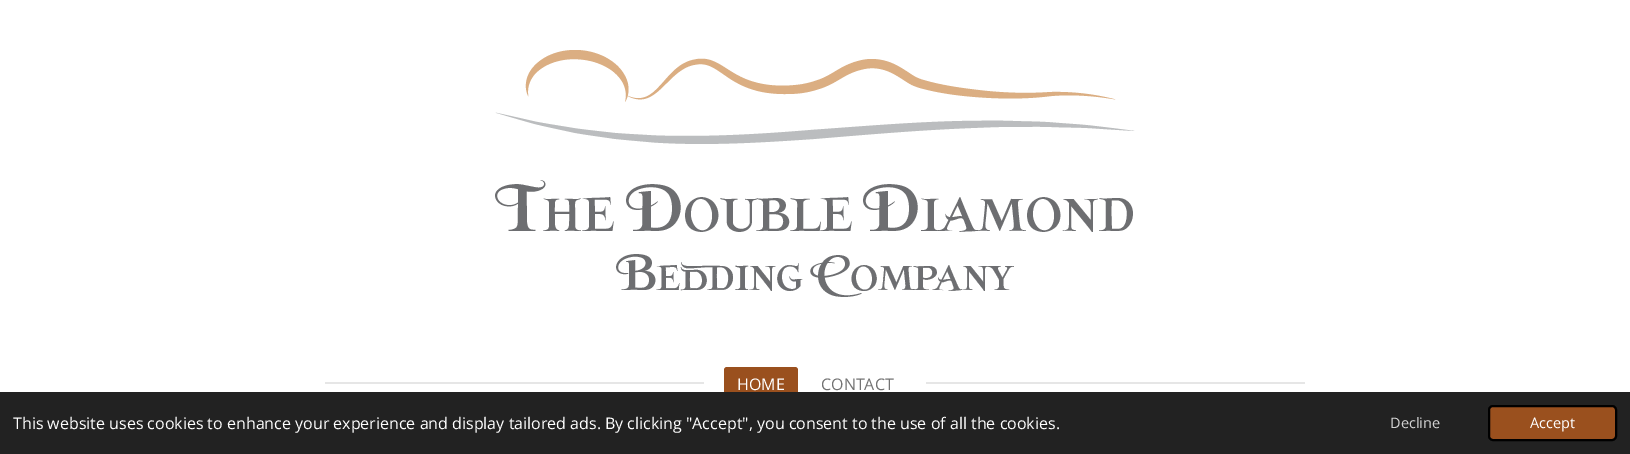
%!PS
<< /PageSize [1630 454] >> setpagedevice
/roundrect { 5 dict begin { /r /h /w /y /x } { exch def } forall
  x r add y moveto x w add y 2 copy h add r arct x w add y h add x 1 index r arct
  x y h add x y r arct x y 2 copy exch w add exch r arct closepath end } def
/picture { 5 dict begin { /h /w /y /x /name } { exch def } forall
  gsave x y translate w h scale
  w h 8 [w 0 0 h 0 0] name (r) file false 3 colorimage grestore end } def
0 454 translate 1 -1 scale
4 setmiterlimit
1 setgray
0 0 1630 454 rectfill
(img1.rgb) 495 50 640 247 picture
0.902 setgray
325 382 379 2 rectfill
0.604 0.314 0.118 setrgbcolor
724 367 74 34 3 roundrect fill
/OpenSans-Regular [16 0 0 -16 0 0] selectfont
1 setgray
737 390 moveto (HOME) show
0.451 setgray
821 390 moveto (CONTACT) show
0.902 setgray
926 382 379 2 rectfill
0.133 setgray
0 392 1630 62 rectfill
1 setgray
13 429 moveto (This website uses cookies to enhance your experience and display tailored ads. By clicking "Accept", you consent to the use of all the cookies.) show
/OpenSans-Regular [14.5 0 0 -14.5 0 0] selectfont
0.827 setgray
1390 428 moveto (Decline) show
0.604 0.314 0.118 setrgbcolor
1489 406 127 34 4 roundrect gsave fill grestore
0 setgray
2 setlinewidth
stroke
1 setgray
1530 428 moveto (Accept) show
showpage
